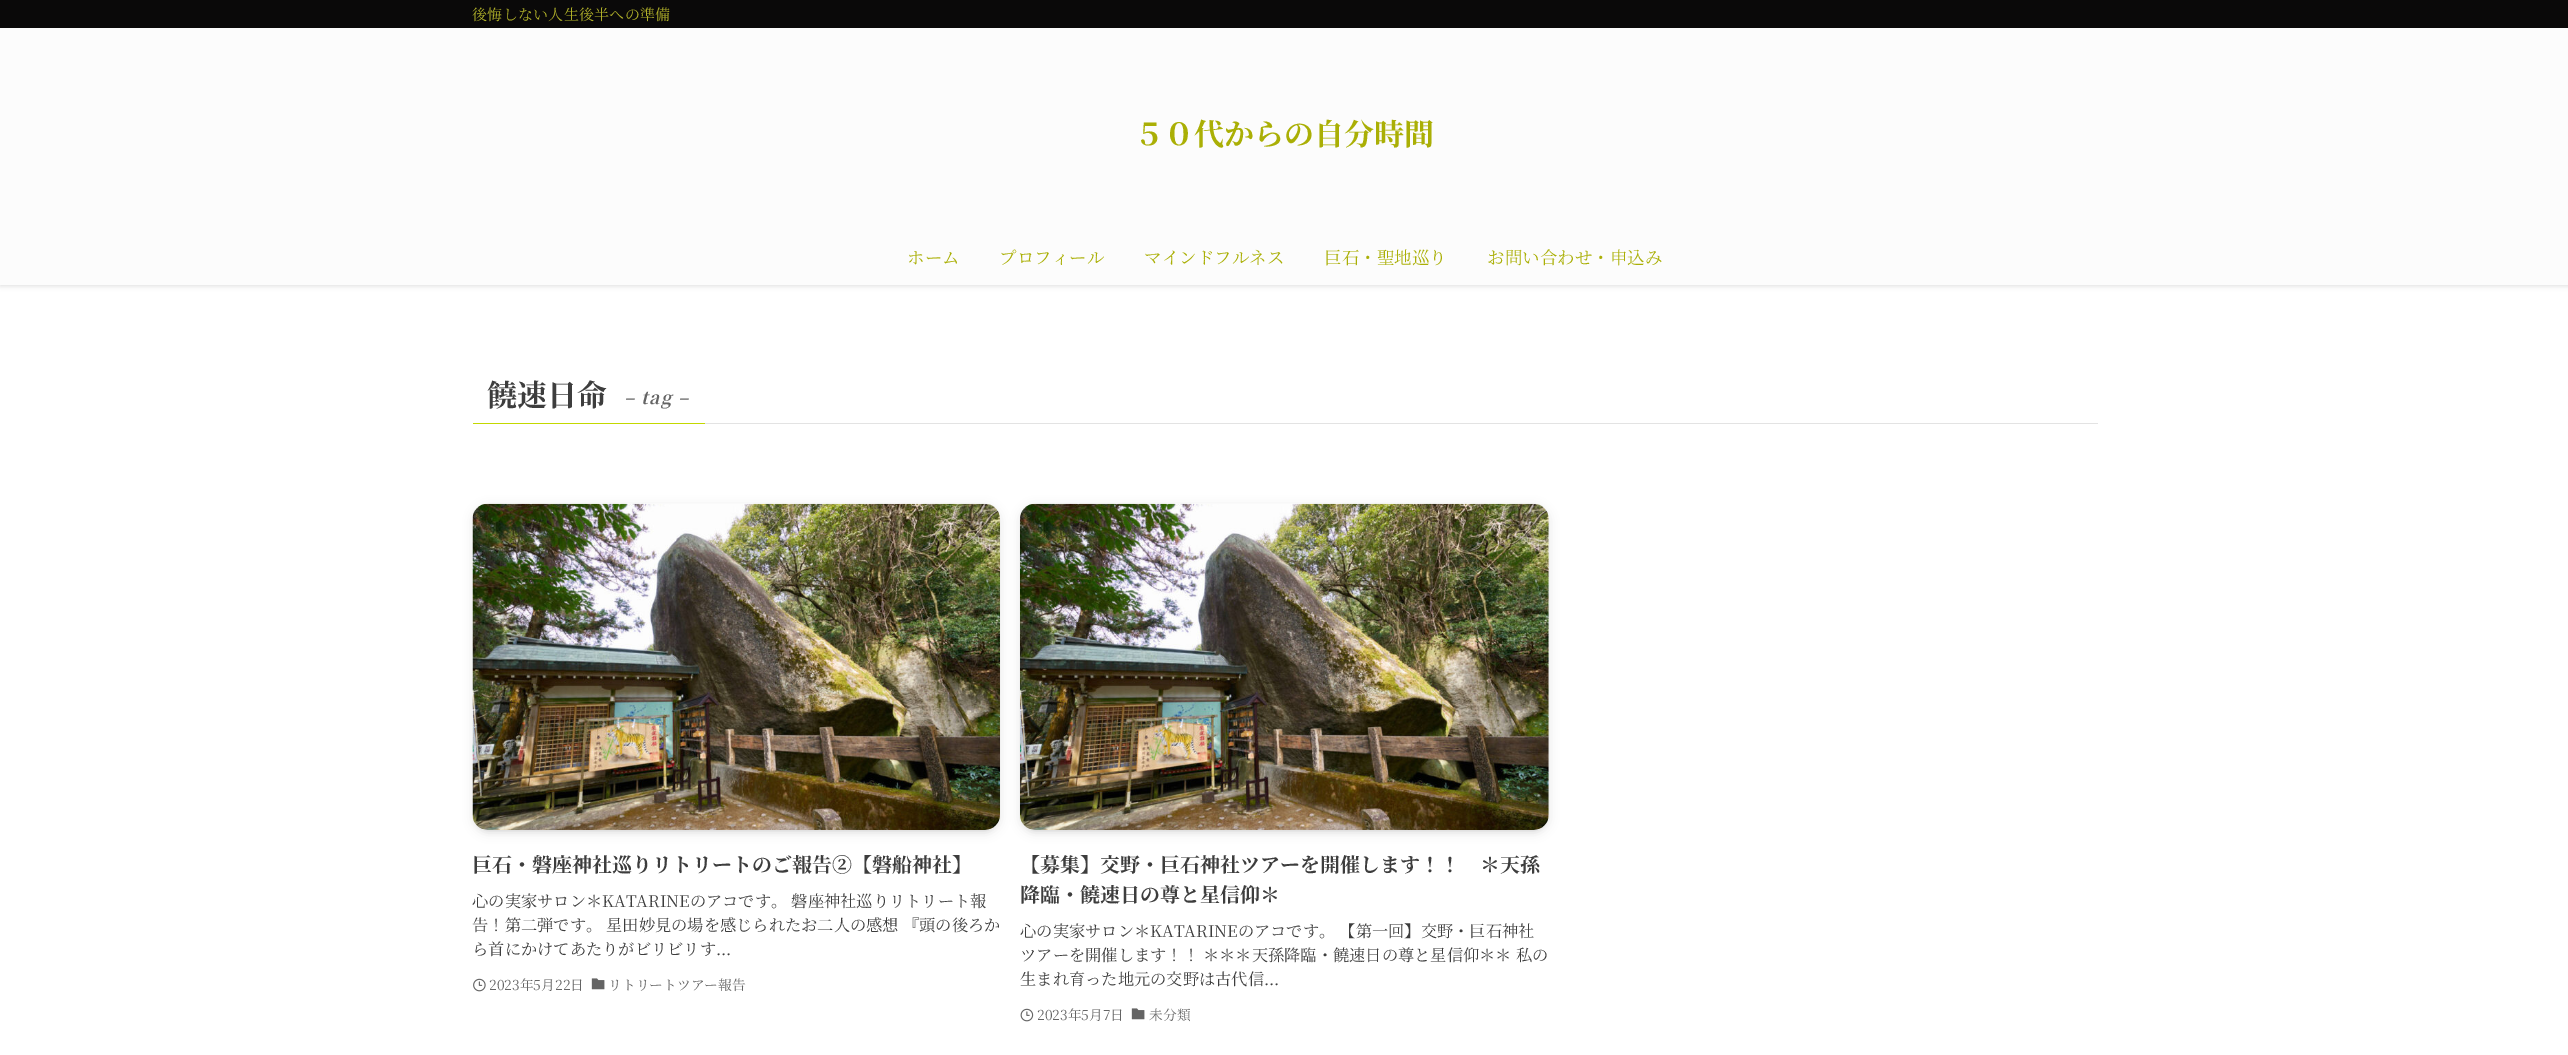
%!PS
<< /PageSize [2568 1055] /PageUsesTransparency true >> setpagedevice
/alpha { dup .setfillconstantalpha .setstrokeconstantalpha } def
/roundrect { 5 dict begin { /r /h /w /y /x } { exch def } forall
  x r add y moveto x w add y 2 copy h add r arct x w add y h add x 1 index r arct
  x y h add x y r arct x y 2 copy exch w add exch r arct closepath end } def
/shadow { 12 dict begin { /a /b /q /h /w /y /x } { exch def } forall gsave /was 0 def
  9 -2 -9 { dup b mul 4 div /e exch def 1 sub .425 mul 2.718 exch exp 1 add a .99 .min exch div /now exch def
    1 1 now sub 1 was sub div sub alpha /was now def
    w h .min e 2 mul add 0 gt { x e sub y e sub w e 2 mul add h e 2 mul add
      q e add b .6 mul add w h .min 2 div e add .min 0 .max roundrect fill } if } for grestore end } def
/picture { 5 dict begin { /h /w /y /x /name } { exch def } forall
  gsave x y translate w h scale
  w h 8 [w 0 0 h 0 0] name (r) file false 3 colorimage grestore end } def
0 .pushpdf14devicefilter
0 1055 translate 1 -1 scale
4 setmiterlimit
1 setgray
0 0 2568 1055 rectfill
0 setgray
0 1 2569 285 0 2.5 0.12 shadow
0.988 setgray
0 28 2568 257 rectfill
0.039 0.035 0.035 setrgbcolor
0 0 2568 28 rectfill
/NotoSerifJP-Regular [15 0 0 -15 0 0] selectfont
0.686 0.686 0.157 setrgbcolor
472 20 moveto 0.25 0 (後悔しない人生後半への準備) ashow
/NotoSerifJP-Bold [30 0 0 -30 0 0] selectfont
0.667 0.686 0.02 setrgbcolor
1134 145 moveto (５０代からの自分時間) show
/NotoSerifJP-Regular [17.5 0 0 -17.5 0 0] selectfont
907 264 moveto (ホーム) show
999 264 moveto (プロフィール) show
1144 264 moveto (マインドフルネス) show
1324 264 moveto (巨石・聖地巡り) show
1487 264 moveto (お問い合わせ・申込み) show
0.89 setgray
705 423 1393 1 rectfill
0.765 0.847 0 setrgbcolor
473 423 232 1 rectfill
/NotoSerifJP-Bold [30 0 0 -30 0 0] selectfont
0.239 setgray
487 406 moveto (饒速日命) show
/NotoSerifJP-BoldItalic [17.5 0 0 -17.5 0 0] selectfont
0.392 setgray
624 404 moveto 1.25 0 (– tag –) ashow
0 setgray
478 514 517 316 10 2.5 0.1 shadow
473 506 527 327 15 5 0.1 shadow
(img1.rgb) 472 503 528 327 picture
/NotoSerifJP-Bold [20 0 0 -20 0 0] selectfont
0.239 setgray
472 872 moveto (巨石・磐座神社巡りリトリートのご報告②【磐船神社】) show
/NotoSerifJP-Regular [16.25 0 0 -16.25 0 0] selectfont
472 907 moveto (心の実家サロン＊KATARINEのアコです。 磐座神社巡りリトリート報) show
472 931 moveto (告！第二弾です。 星田妙見の場を感じられたお二人の感想 『頭の後ろか) show
472 955 moveto (ら首にかけてあたりがビリビリす...) show
(img2.rgb) 473 978 13 14 picture
/NotoSerifJP-Regular [13.75 0 0 -13.75 0 0] selectfont
0.392 setgray
489 990 moveto (2023年5月22日) show
(img3.rgb) 591 978 14 12 picture
608 990 moveto (リトリートツアー報告) show
0 setgray
1025 514 519 316 10 2.5 0.1 shadow
1020 506 529 327 15 5 0.1 shadow
(img4.rgb) 1020 503 529 327 picture
/NotoSerifJP-Bold [20 0 0 -20 0 0] selectfont
0.239 setgray
1020 872 moveto (【募集】交野・巨石神社ツアーを開催します！！　＊天孫) show
1020 902 moveto (降臨・饒速日の尊と星信仰＊) show
/NotoSerifJP-Regular [16.25 0 0 -16.25 0 0] selectfont
1020 937 moveto (心の実家サロン＊KATARINEのアコです。 【第一回】交野・巨石神社) show
1020 961 moveto (ツアーを開催します！！ ＊＊＊天孫降臨・饒速日の尊と星信仰＊＊ 私の) show
1020 985 moveto (生まれ育った地元の交野は古代信...) show
(img5.rgb) 1020 1008 14 14 picture
/NotoSerifJP-Regular [13.75 0 0 -13.75 0 0] selectfont
0.392 setgray
1037 1020 moveto (2023年5月7日) show
(img3.rgb) 1131 1008 14 12 picture
1149 1020 moveto (未分類) show
.poppdf14devicefilter showpage
